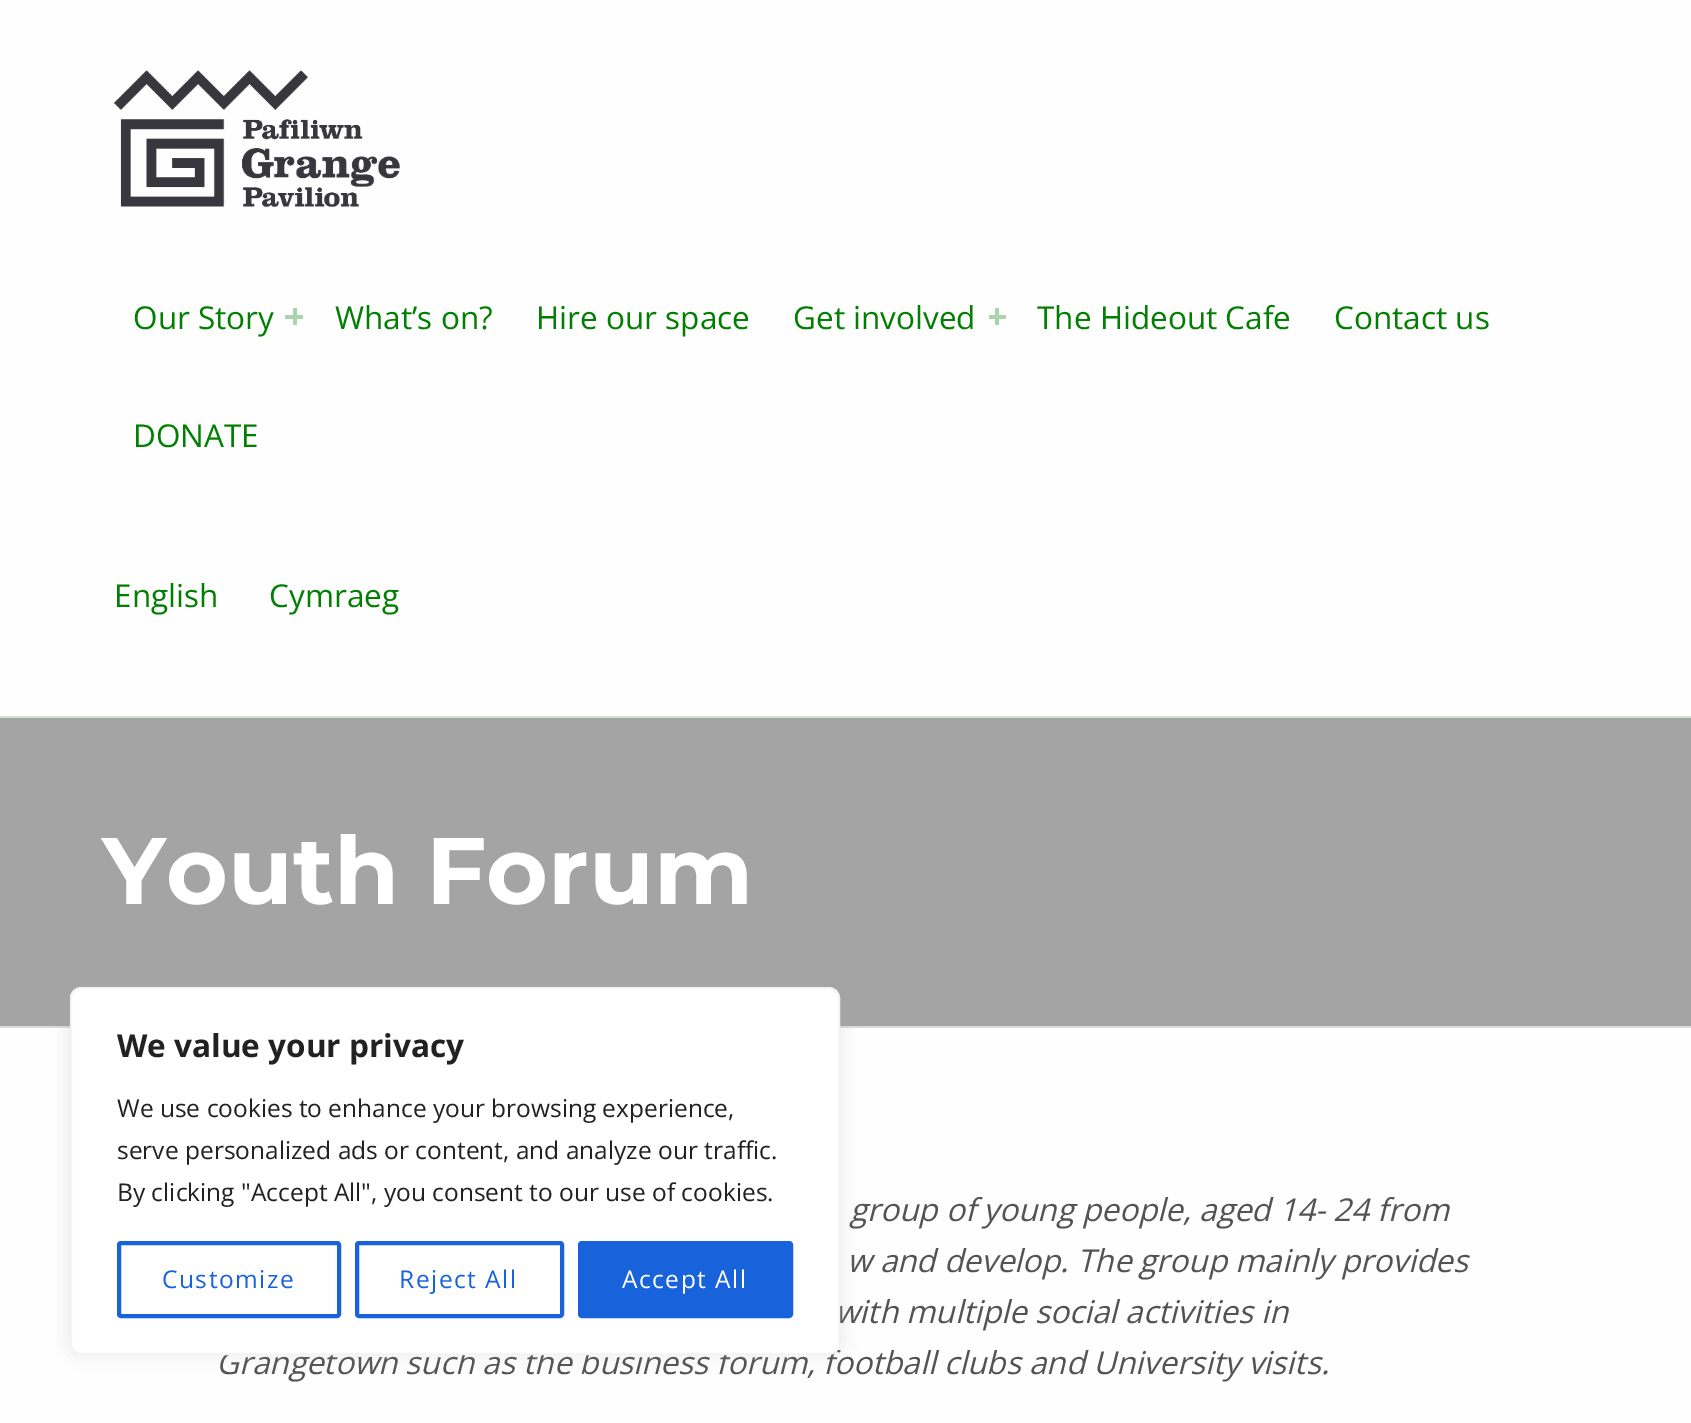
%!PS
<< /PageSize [1691 1423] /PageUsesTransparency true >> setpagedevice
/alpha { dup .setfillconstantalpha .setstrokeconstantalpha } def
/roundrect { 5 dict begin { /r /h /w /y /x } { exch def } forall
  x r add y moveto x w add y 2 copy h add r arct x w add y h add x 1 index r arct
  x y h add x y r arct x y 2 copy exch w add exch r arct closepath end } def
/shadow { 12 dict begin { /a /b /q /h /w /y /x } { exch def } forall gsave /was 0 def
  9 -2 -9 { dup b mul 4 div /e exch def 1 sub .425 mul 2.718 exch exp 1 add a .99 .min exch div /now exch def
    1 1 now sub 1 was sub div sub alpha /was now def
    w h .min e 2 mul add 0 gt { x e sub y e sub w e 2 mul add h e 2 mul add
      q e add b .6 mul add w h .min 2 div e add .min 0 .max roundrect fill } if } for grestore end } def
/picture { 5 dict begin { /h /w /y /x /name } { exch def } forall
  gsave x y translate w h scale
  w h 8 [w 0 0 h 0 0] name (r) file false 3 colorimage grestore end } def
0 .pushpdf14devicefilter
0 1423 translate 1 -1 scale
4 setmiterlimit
0.996 0.996 1 setrgbcolor
0 0 1691 1423 rectfill
0.863 0.863 0.867 setrgbcolor
0 1027 1691 1 rectfill
0.796 0.898 0.8 setrgbcolor
0 716 1691 2 rectfill
(img1.rgb) 113 70 287 138 picture
/OpenSans-Regular [31.5 0 0 -31.5 0 0] selectfont
0 0.498 0 setrgbcolor
133 329 moveto (Our Story) show
0.667 0.831 0.671 setrgbcolor
285 315 18 4 rectfill
293 308 4 17 rectfill
0 0.498 0 setrgbcolor
335 329 moveto (What’s on?) show
536 329 moveto (Hire our space) show
793 329 moveto (Get involved) show
0.667 0.831 0.671 setrgbcolor
989 315 17 4 rectfill
995 308 4 17 rectfill
0 0.498 0 setrgbcolor
1037 329 moveto (The Hideout Cafe) show
1334 329 moveto (Contact us) show
133 447 moveto (DONATE) show
114 607 moveto (English) show
269 607 moveto (Cymraeg) show
0.851 0.851 0.855 setrgbcolor
0 1026 1691 1 rectfill
0.643 setgray
0 718 1691 308 rectfill
/Montserrat-Bold [94.5 0 0 -94.5 0 0] selectfont
1 setgray
102 904 moveto (Youth Forum) show
/OpenSans-Italic [31.5 0 0 -31.5 0 0] selectfont
0.325 0.325 0.329 setrgbcolor
850 1221 moveto (group of young people, aged 14- 24 from) show
847 1272 moveto (w and develop. The group mainly provides) show
835 1323 moveto (with multiple social activities in) show
216 1374 moveto (Grangetown such as the business forum, football clubs and University visits.) show
0.675 0.671 0.671 setrgbcolor
70 985 770 368 11 9 0.3 shadow
1 setgray
71 988 768 366 10 roundrect gsave fill grestore
0.957 setgray
2 setlinewidth
stroke
/OpenSans-Bold [31.5 0 0 -31.5 0 0] selectfont
0.129 setgray
117 1057 moveto (We value your privacy) show
/OpenSans-Regular [24.5 0 0 -24.5 0 0] selectfont
117 1117 moveto (We use cookies to enhance your browsing experience,) show
117 1159 moveto (serve personalized ads or content, and analyze our traffic.) show
117 1201 moveto (By clicking "Accept All", you consent to our use of cookies.) show
0.094 0.388 0.863 setrgbcolor
4 setlinewidth
119 1243 220 73 2 roundrect stroke
162 1288 moveto 1.5 0 (Customize) ashow
357 1243 205 73 2 roundrect stroke
399 1288 moveto 1.5 0 (Reject All) ashow
580 1243 211 73 2 roundrect gsave fill grestore
stroke
1 setgray
622 1288 moveto 1.5 0 (Accept All) ashow
.poppdf14devicefilter showpage
